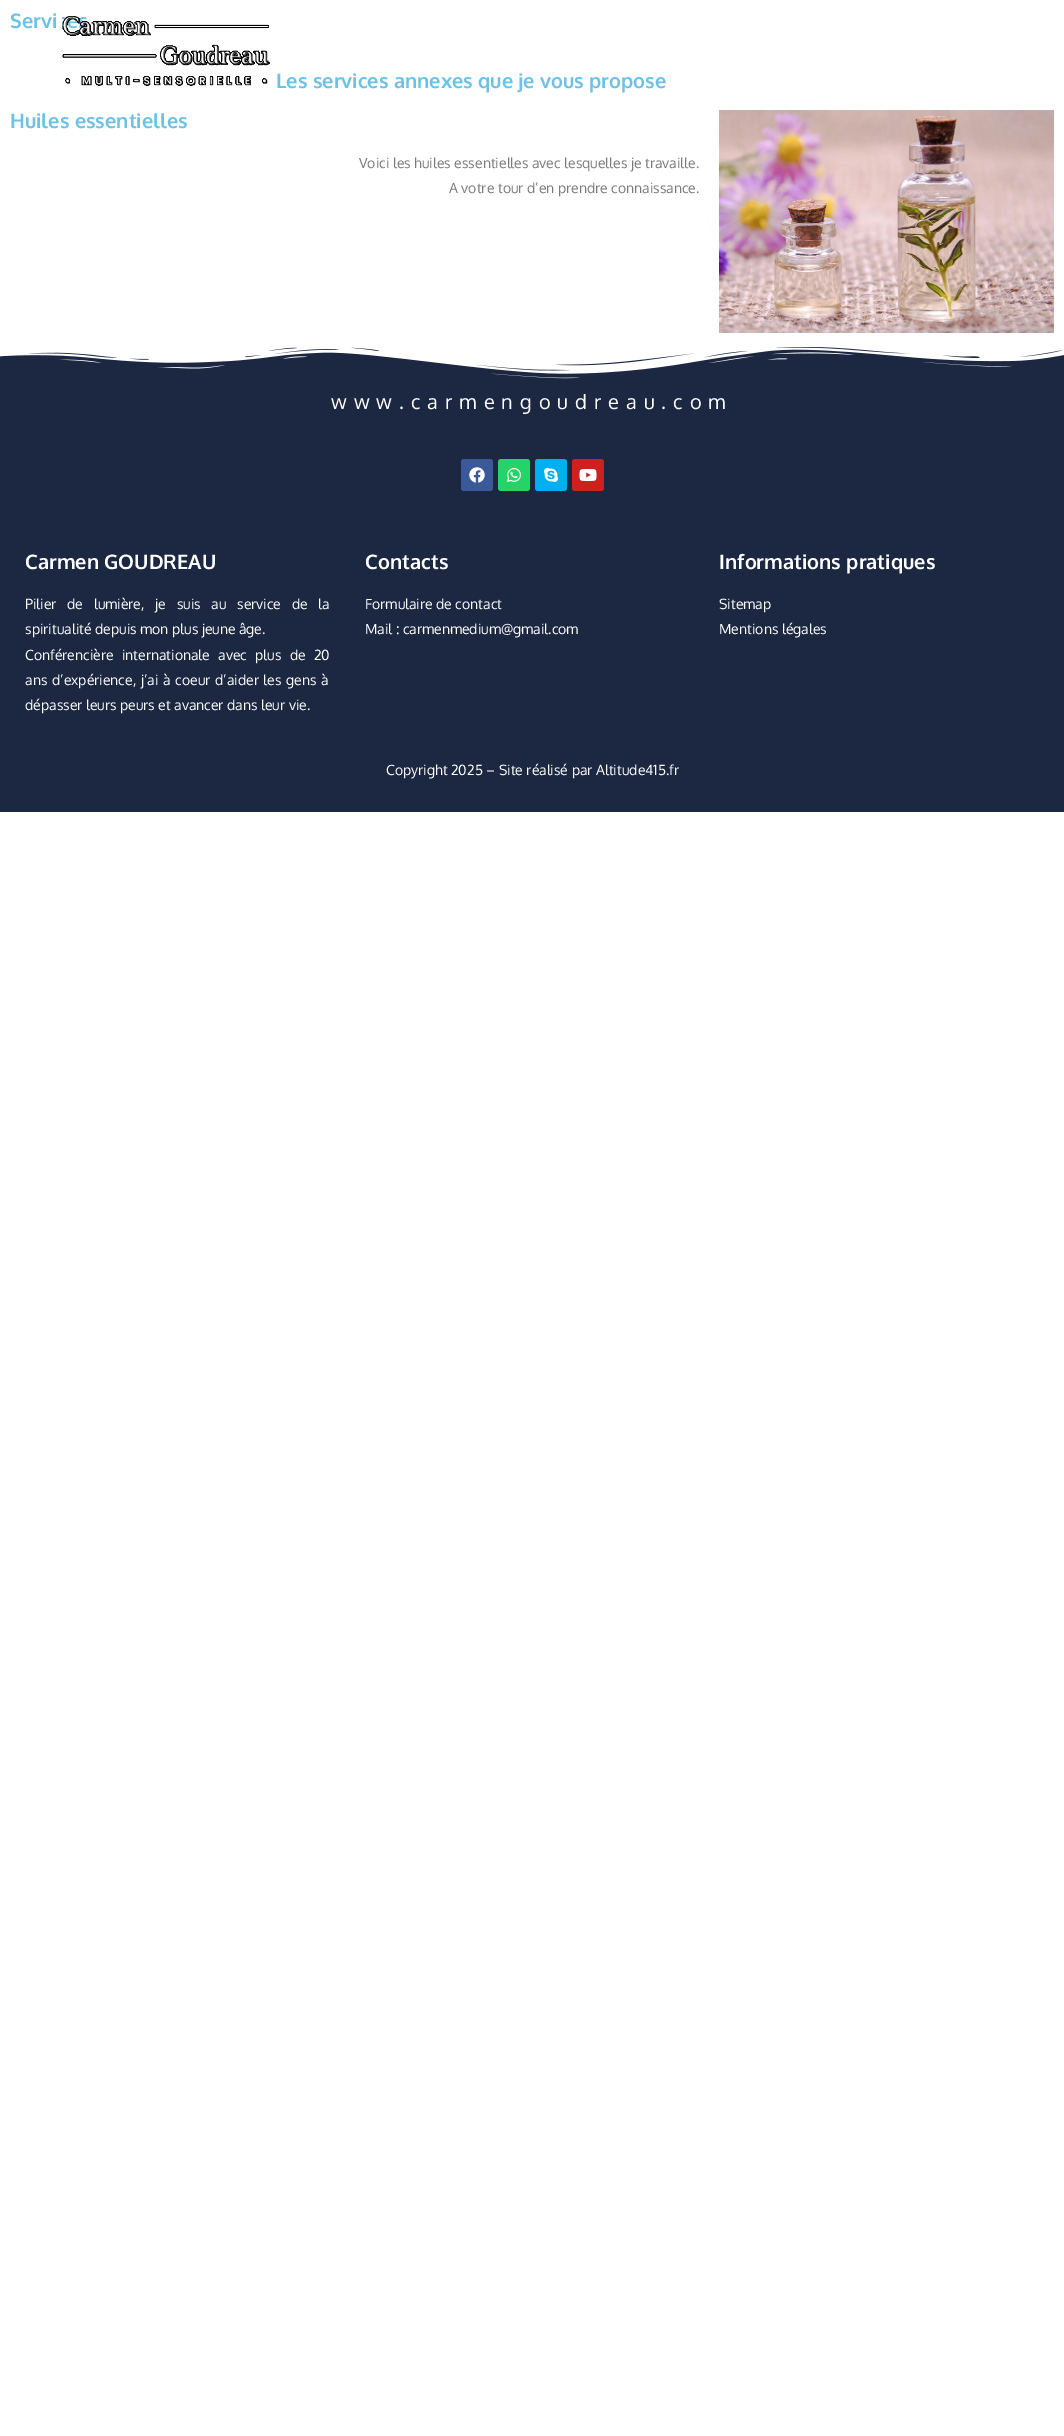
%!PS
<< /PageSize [1064 2436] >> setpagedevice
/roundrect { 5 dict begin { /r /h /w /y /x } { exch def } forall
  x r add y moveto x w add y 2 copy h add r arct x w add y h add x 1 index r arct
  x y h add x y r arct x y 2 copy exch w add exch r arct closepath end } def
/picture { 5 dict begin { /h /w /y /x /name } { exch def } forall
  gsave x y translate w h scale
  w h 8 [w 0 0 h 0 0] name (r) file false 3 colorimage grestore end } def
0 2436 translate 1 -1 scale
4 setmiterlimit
1 setgray
0 0 1064 2436 rectfill
/Oxygen-Bold [20 0 0 -20 0 0] selectfont
0.431 0.757 0.894 setrgbcolor
10 28 moveto (Servi) show
276 88 moveto (Les services annexes que je vous propose) show
10 128 moveto (Huiles essentielles) show
/Oxygen-Regular [14 0 0 -14 0 0] selectfont
0.478 setgray
359 168 moveto (Voici les huiles essentielles avec lesquelles je travaille.) show
449 193 moveto (A votre tour d’en prendre connaissance.) show
(img1.rgb) 719 110 335 223 picture
(img2.rgb) 62 16 208 70 picture
0.11 0.157 0.259 setrgbcolor
0 347 1064 465 rectfill
(img3.rgb) 0 343 1064 36 picture
/Oxygen-Regular [20 0 0 -20 0 0] selectfont
1 setgray
331 409 moveto 7 0 (www.carmengoudreau.com) ashow
0.231 0.349 0.596 setrgbcolor
461 459 32 32 3 roundrect fill
(img4.rgb) 469 467 16 16 picture
0.145 0.827 0.4 setrgbcolor
498 459 32 32 3 roundrect fill
(img5.rgb) 507 468 14 14 picture
0 0.686 0.941 setrgbcolor
535 459 32 32 3 roundrect fill
(img6.rgb) 544 468 14 14 picture
0.804 0.125 0.122 setrgbcolor
572 459 32 32 3 roundrect fill
(img7.rgb) 579 469 18 12 picture
/Oxygen-Bold [20 0 0 -20 0 0] selectfont
1 setgray
25 569 moveto (Carmen GOUDREAU) show
/Oxygen-Regular [14 0 0 -14 0 0] selectfont
25 609 moveto 7.25 0 32 (Pilier de lumière, je suis au service de la) widthshow
25 634 moveto (spiritualité depuis mon plus jeune âge.) show
25 660 moveto 4.75 0 32 (Conférencière internationale avec plus de 20) widthshow
25 685 moveto 1.25 0 32 (ans d’expérience, j’ai à coeur d’aider les gens à) widthshow
25 710 moveto (dépasser leurs peurs et avancer dans leur vie.) show
/Oxygen-Bold [20 0 0 -20 0 0] selectfont
365 569 moveto (Contacts) show
/Oxygen-Regular [14 0 0 -14 0 0] selectfont
365 609 moveto (Formulaire de contact) show
365 634 moveto (Mail : carmenmedium@gmail.com) show
/Oxygen-Bold [20 0 0 -20 0 0] selectfont
719 569 moveto (Informations pratiques) show
/Oxygen-Regular [14 0 0 -14 0 0] selectfont
719 609 moveto (Sitemap) show
719 634 moveto (Mentions légales) show
386 775 moveto (Copyright 2025 – Site réalisé par Altitude415.fr) show
showpage
